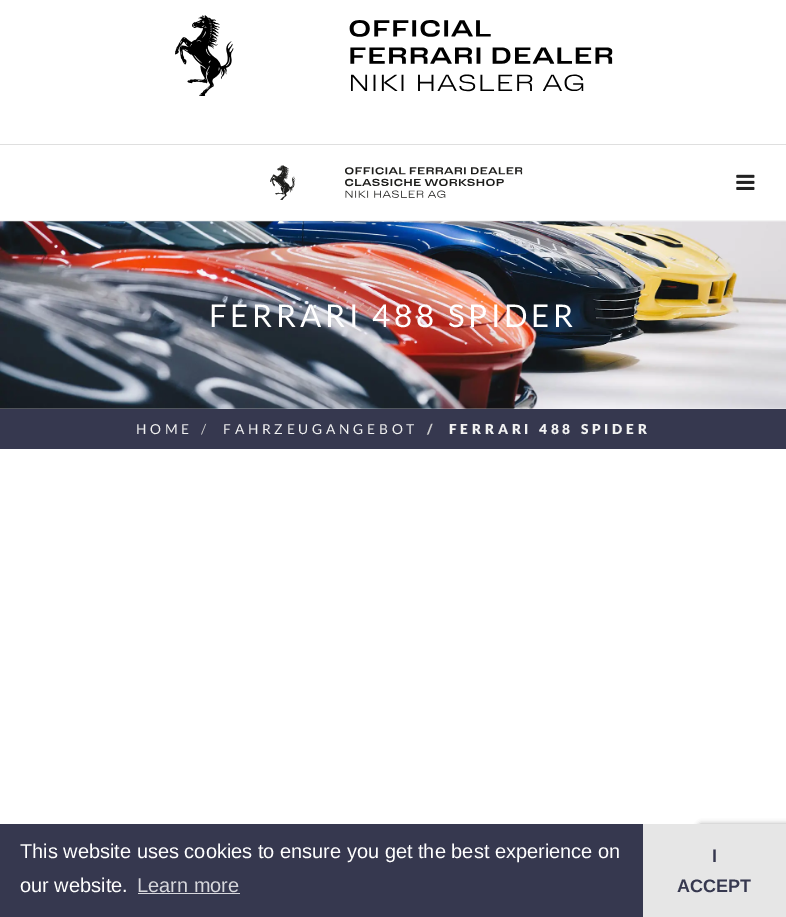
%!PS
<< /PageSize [786 917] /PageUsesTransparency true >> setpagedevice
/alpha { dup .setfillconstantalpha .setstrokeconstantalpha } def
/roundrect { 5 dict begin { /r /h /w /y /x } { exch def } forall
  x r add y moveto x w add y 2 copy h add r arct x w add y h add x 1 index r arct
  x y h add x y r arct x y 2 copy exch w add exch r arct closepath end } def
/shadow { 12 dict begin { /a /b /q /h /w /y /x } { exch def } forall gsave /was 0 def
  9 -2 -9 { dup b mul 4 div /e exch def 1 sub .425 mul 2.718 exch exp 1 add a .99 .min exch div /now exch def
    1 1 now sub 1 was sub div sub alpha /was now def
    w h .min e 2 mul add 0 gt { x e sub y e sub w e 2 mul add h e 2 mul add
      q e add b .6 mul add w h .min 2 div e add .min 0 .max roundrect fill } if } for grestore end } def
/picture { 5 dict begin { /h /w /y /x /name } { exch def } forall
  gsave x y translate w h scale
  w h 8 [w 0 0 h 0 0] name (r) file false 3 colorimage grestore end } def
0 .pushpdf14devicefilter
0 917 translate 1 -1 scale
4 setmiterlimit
1 setgray
0 0 786 917 rectfill
(img1.rgb) 175 15 438 81 picture
0.957 setgray
0 220 786 1 rectfill
0.875 setgray
0 144 786 1 rectfill
(img2.rgb) 270 165 253 35 picture
(img3.rgb) 736 174 19 16 picture
(img4.rgb) 0 221 786 188 picture
/Lato-Regular [31.25 0 0 -31.25 0 0] selectfont
1 setgray
209 327 moveto 3.75 0 (FERRARI 488 SPIDER) ashow
0.212 0.22 0.31 setrgbcolor
0 409 786 40 rectfill
/Lato-Regular [13.75 0 0 -13.75 0 0] selectfont
0.949 setgray
136 434 moveto 3.75 0 (HOME) ashow
0.8 setgray
201 434 moveto 3.75 0 (/) ashow
0.949 setgray
223 434 moveto 3.75 0 (FAHRZEUGANGEBOT) ashow
/Lato-Black [13.75 0 0 -13.75 0 0] selectfont
0.8 setgray
427 434 moveto 3.75 0 (/) ashow
0.949 setgray
449 434 moveto 3.75 0 (FERRARI 488 SPIDER) ashow
0.502 setgray
699 825 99 75 2.5 3 1 shadow
0.212 0.22 0.31 setrgbcolor
0 824 643 93 rectfill
/LiberationSans-Regular [20 0 0 -20 0 0] selectfont
1 setgray
20 858 moveto (This website uses cookies to ensure you get the best experience on) show
20 892 moveto (our website.) show
0.843 0.843 0.863 setrgbcolor
137 892 moveto (Learn more) show
138 893 102 1 rectfill
0.902 setgray
643 824 143 93 rectfill
/LiberationSans-Bold [18 0 0 -18 0 0] selectfont
0.212 0.22 0.31 setrgbcolor
712 862 moveto (I) show
677 892 moveto (ACCEPT) show
.poppdf14devicefilter showpage
